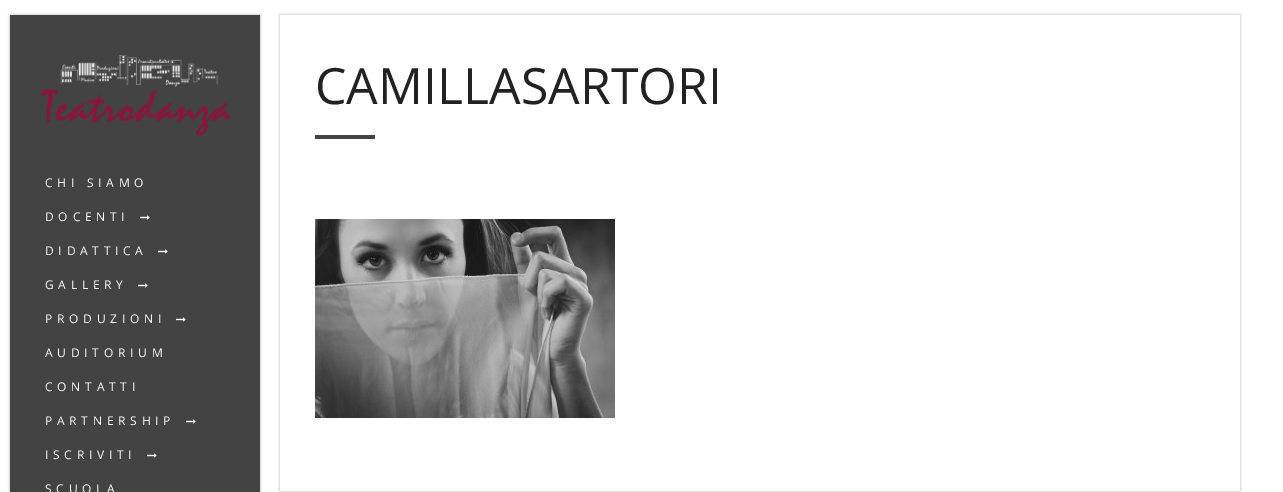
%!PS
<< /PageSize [1283 492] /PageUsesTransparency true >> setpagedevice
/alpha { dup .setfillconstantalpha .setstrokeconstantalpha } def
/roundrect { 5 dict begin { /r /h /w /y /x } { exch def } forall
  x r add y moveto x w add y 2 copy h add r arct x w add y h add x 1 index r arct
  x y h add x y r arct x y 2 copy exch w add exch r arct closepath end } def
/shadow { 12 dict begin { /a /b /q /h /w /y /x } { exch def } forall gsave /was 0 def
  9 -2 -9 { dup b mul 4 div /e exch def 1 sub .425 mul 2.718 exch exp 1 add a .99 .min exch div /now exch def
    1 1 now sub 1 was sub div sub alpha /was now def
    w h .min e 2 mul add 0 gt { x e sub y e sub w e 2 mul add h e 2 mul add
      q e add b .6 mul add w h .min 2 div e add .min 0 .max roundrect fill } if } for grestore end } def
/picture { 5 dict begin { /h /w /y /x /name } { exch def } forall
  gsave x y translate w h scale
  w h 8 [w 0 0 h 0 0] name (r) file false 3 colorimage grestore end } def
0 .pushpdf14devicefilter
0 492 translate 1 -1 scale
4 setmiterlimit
1 setgray
0 0 1283 492 rectfill
gsave
newpath 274 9 moveto 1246 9 lineto 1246 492 lineto 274 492 lineto closepath 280 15 moveto 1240 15 lineto 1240 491 lineto 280 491 lineto closepath eoclip newpath
0 setgray
280 15 960 476 0 1.5 0.3 shadow
grestore
/OpenSans-Regular [50 0 0 -50 0 0] selectfont
0.133 setgray
315 104 moveto (CAMILLASARTORI) show
0.267 setgray
315 135 60 4 rectfill
(img1.rgb) 315 219 300 199 picture
0 setgray
10 15 250 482 0 1.5 0.3 shadow
0.263 setgray
10 15 250 477 rectfill
(img2.rgb) 41 55 189 81 picture
/OpenSans-Regular [12 0 0 -12 0 0] selectfont
1 setgray
45 187 moveto 4.75 0 (CHI SIAMO) ashow
45 221 moveto 4.75 0 (DOCENTI) ashow
(img3.rgb) 140 215 10 5 picture
45 255 moveto 4.75 0 (DIDATTICA) ashow
(img3.rgb) 158 249 10 5 picture
45 289 moveto 4.75 0 (GALLERY) ashow
(img3.rgb) 138 283 10 5 picture
45 323 moveto 4.75 0 (PRODUZIONI) ashow
(img3.rgb) 176 317 10 5 picture
45 357 moveto 4.75 0 (AUDITORIUM) ashow
45 391 moveto 4.75 0 (CONTATTI) ashow
45 425 moveto 4.75 0 (PARTNERSHIP) ashow
(img3.rgb) 186 419 10 5 picture
45 459 moveto 4.75 0 (ISCRIVITI) ashow
(img3.rgb) 147 453 10 5 picture
45 493 moveto 4.75 0 (SCUOLA) ashow
.poppdf14devicefilter showpage
